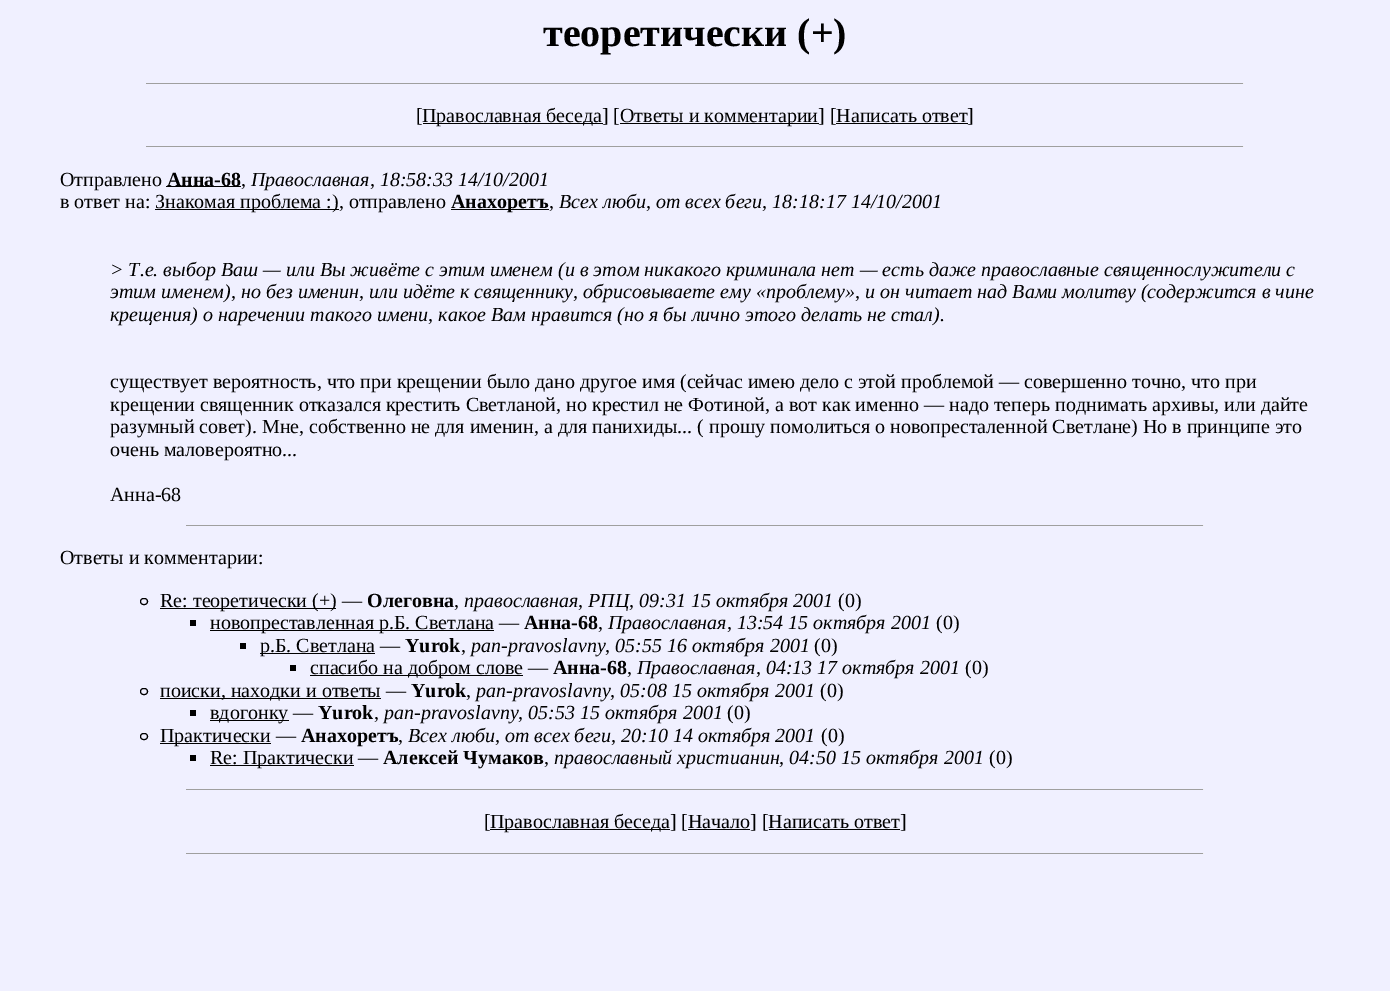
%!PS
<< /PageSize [1390 991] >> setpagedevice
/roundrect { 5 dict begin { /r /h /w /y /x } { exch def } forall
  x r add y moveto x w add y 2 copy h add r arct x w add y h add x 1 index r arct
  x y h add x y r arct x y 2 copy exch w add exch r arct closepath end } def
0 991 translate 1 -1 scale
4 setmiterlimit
0.941 0.941 1 setrgbcolor
0 0 1390 991 rectfill
/LiberationSerif-Bold [40 0 0 -40 0 0] selectfont
0 setgray
543 46 moveto (теоретически \(+\)) show
0.624 setgray
146 83 1098 1 rectfill
0.933 setgray
1243 83 1 1 rectfill
/LiberationSerif-Regular [20 0 0 -20 0 0] selectfont
0 setgray
416 122 moveto ([) show
423 123 180 1 rectfill
422 122 moveto (Православная беседа] [) show
620 123 199 1 rectfill
620 122 moveto (Ответы и комментарии] [Написать ответ]) show
836 123 132 1 rectfill
0.624 setgray
146 146 1098 1 rectfill
0.933 setgray
1243 146 1 1 rectfill
0 setgray
60 186 moveto (Отправлено) show
166 186 75 1 rectfill
/LiberationSerif-Bold [20 0 0 -20 0 0] selectfont
167 186 moveto (Анна-68) show
/LiberationSerif-Regular [20 0 0 -20 0 0] selectfont
241 186 moveto (,) show
/LiberationSerif-Italic [20 0 0 -20 0 0] selectfont
251 186 moveto (Православная, 18:58:33 14/10/2001) show
/LiberationSerif-Regular [20 0 0 -20 0 0] selectfont
60 208 moveto (в ответ на:) show
155 209 184 1 rectfill
155 208 moveto (Знакомая проблема :\), отправлено) show
451 209 98 1 rectfill
/LiberationSerif-Bold [20 0 0 -20 0 0] selectfont
451 208 moveto (Анахоретъ) show
/LiberationSerif-Regular [20 0 0 -20 0 0] selectfont
549 208 moveto (,) show
/LiberationSerif-Italic [20 0 0 -20 0 0] selectfont
559 208 moveto (Всех люби, от всех беги, 18:18:17 14/10/2001) show
110 276 moveto (> Т.е. выбор Ваш — или Вы живёте с этим именем \(и в этом никакого криминала нет — есть даже православные священнослужители с) show
110 298 moveto (этим именем\), но без именин, или идёте к священнику, обрисовываете ему «проблему», и он читает над Вами молитву \(содержится в чине) show
110 321 moveto (крещения\) о наречении такого имени, какое Вам нравится \(но я бы лично этого делать не стал\).) show
/LiberationSerif-Regular [20 0 0 -20 0 0] selectfont
110 388 moveto (существует вероятность, что при крещении было дано другое имя \(сейчас имею дело с этой проблемой — совершенно точно, что при) show
110 411 moveto (крещении священник отказался крестить Светланой, но крестил не Фотиной, а вот как именно — надо теперь поднимать архивы, или дайте) show
110 433 moveto (разумный совет\). Мне, собственно не для именин, а для панихиды... \( прошу помолиться о новопресталенной Светлане\) Но в принципе это) show
110 456 moveto (очень маловероятно...) show
110 501 moveto (Анна-68) show
0.624 setgray
186 525 1018 1 rectfill
0.933 setgray
1203 525 1 1 rectfill
0 setgray
60 564 moveto (Ответы и комментарии:) show
140.5 598.5 7 6 3 roundrect stroke
160 608 176 1 rectfill
160 607 moveto (Re: теоретически \(+\) —) show
/LiberationSerif-Bold [20 0 0 -20 0 0] selectfont
367 607 moveto (Олеговна) show
/LiberationSerif-Italic [20 0 0 -20 0 0] selectfont
464 607 moveto (православная, РПЦ, 09:31 15 октября 2001) show
/LiberationSerif-Regular [20 0 0 -20 0 0] selectfont
838 607 moveto (\(0\)) show
454 607 moveto (,) show
190 620 6 6 rectfill
210 630 284 1 rectfill
210 629 moveto (новопреставленная р.Б. Светлана —) show
/LiberationSerif-Bold [20 0 0 -20 0 0] selectfont
524 629 moveto (Анна-68) show
/LiberationSerif-Italic [20 0 0 -20 0 0] selectfont
608 629 moveto (Православная, 13:54 15 октября 2001) show
/LiberationSerif-Regular [20 0 0 -20 0 0] selectfont
936 629 moveto (\(0\)) show
598 629 moveto (,) show
240 643 6 6 rectfill
260 653 115 1 rectfill
260 652 moveto (р.Б. Светлана —) show
/LiberationSerif-Bold [20 0 0 -20 0 0] selectfont
405 652 moveto (Yurok) show
/LiberationSerif-Italic [20 0 0 -20 0 0] selectfont
471 652 moveto (pan-pravoslavny, 05:55 16 октября 2001) show
/LiberationSerif-Regular [20 0 0 -20 0 0] selectfont
814 652 moveto (\(0\)) show
461 652 moveto (,) show
290 665 6 6 rectfill
310 675 213 1 rectfill
310 674 moveto (спасибо на добром слове —) show
/LiberationSerif-Bold [20 0 0 -20 0 0] selectfont
553 674 moveto (Анна-68) show
/LiberationSerif-Italic [20 0 0 -20 0 0] selectfont
637 674 moveto (Православная, 04:13 17 октября 2001) show
/LiberationSerif-Regular [20 0 0 -20 0 0] selectfont
965 674 moveto (\(0\)) show
627 674 moveto (,) show
140.5 688.5 7 6 3 roundrect stroke
160 698 221 1 rectfill
160 697 moveto (поиски, находки и ответы —) show
/LiberationSerif-Bold [20 0 0 -20 0 0] selectfont
411 697 moveto (Yurok) show
/LiberationSerif-Italic [20 0 0 -20 0 0] selectfont
476 697 moveto (pan-pravoslavny, 05:08 15 октября 2001) show
/LiberationSerif-Regular [20 0 0 -20 0 0] selectfont
820 697 moveto (\(0\)) show
466 697 moveto (,) show
190 710 6 6 rectfill
210 720 79 1 rectfill
210 719 moveto (вдогонку —) show
/LiberationSerif-Bold [20 0 0 -20 0 0] selectfont
318 719 moveto (Yurok) show
/LiberationSerif-Italic [20 0 0 -20 0 0] selectfont
384 719 moveto (pan-pravoslavny, 05:53 15 октября 2001) show
/LiberationSerif-Regular [20 0 0 -20 0 0] selectfont
727 719 moveto (\(0\)) show
374 719 moveto (,) show
140.5 733.5 7 6 3 roundrect stroke
160 743 111 1 rectfill
160 742 moveto (Практически —) show
/LiberationSerif-Bold [20 0 0 -20 0 0] selectfont
301 742 moveto (Анахоретъ) show
/LiberationSerif-Italic [20 0 0 -20 0 0] selectfont
408 742 moveto (Всех люби, от всех беги, 20:10 14 октября 2001) show
/LiberationSerif-Regular [20 0 0 -20 0 0] selectfont
821 742 moveto (\(0\)) show
398 742 moveto (,) show
190 755 6 6 rectfill
210 765 144 1 rectfill
210 764 moveto (Re: Практически —) show
/LiberationSerif-Bold [20 0 0 -20 0 0] selectfont
383 764 moveto (Алексей Чумаков) show
/LiberationSerif-Italic [20 0 0 -20 0 0] selectfont
554 764 moveto (православный христианин, 04:50 15 октября 2001) show
/LiberationSerif-Regular [20 0 0 -20 0 0] selectfont
989 764 moveto (\(0\)) show
544 764 moveto (,) show
0.624 setgray
186 789 1018 1 rectfill
0.933 setgray
1203 789 1 1 rectfill
0 setgray
484 828 moveto ([) show
490 829 180 1 rectfill
490 828 moveto (Православная беседа] [Начало] [Написать ответ]) show
688 829 62 1 rectfill
769 829 131 1 rectfill
0.624 setgray
186 853 1018 1 rectfill
0.933 setgray
1203 853 1 1 rectfill
showpage
